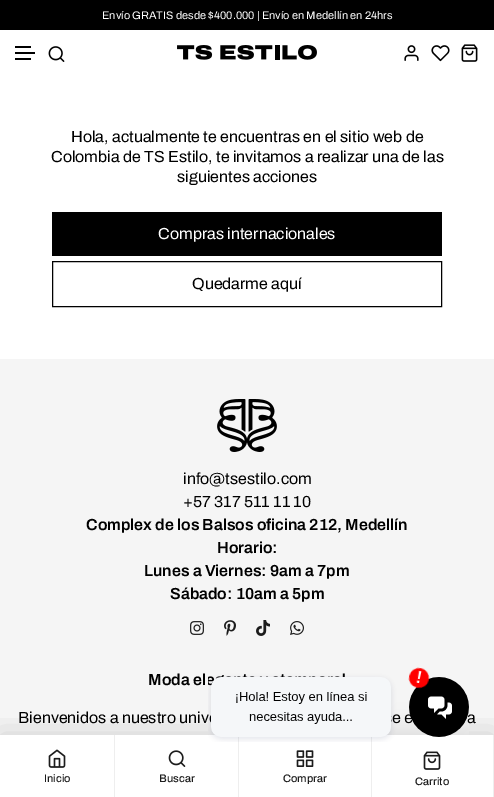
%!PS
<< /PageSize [494 797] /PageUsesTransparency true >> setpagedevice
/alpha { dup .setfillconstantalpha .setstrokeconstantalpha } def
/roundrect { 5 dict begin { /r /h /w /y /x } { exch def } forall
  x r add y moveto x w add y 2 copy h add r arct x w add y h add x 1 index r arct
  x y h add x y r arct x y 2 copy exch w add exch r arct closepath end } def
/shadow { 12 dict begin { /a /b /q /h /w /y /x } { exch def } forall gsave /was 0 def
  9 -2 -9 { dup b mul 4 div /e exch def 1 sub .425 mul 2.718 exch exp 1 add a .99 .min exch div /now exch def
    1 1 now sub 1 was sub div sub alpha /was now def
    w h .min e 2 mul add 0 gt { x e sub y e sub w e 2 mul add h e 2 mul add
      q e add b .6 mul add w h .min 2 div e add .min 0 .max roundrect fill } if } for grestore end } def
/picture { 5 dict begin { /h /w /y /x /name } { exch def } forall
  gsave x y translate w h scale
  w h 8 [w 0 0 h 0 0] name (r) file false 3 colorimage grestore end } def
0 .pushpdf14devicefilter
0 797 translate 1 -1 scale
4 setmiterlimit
1 setgray
0 0 494 797 rectfill
0 setgray
0 0 494 30 rectfill
/Archivo-Regular [11 0 0 -11 0 0] selectfont
1 setgray
102 19 moveto (Envío GRATIS desde $400.000 | Envío en Medellín en 24hrs) show
0 setgray
15 46 16 2 rectfill
15 52 20 2 rectfill
15 58 16 2 rectfill
(img1.rgb) 48 46 17 16 picture
(img2.rgb) 177 45 140 15 picture
(img3.rgb) 404 45 15 16 picture
(img4.rgb) 431 45 19 17 picture
(img5.rgb) 461 44 17 18 picture
/Archivo-Regular [16 0 0 -16 0 0] selectfont
71 142 moveto (Hola, actualmente te encuentras en el sitio web de) show
51 162 moveto (Colombia de TS Estilo, te invitamos a realizar una de las) show
177 182 moveto (siguientes acciones) show
52 212 390 44 rectfill
1 setgray
158 239 moveto (Compras internacionales) show
0 setgray
52.5 261.5 389 45 rectstroke
192 289 moveto (Quedarme aquí) show
0.961 setgray
0 359 494 376 rectfill
(img6.rgb) 217 399 60 53 picture
0 setgray
183 484 moveto (info@tsestilo.com) show
183 507 moveto (+57 317 511 11 10) show
/Archivo-SemiBold [16 0 0 -16 0 0] selectfont
86 530 moveto (Complex de los Balsos oficina 212, Medellín) show
217 553 moveto (Horario:) show
144 576 moveto (Lunes a Viernes: 9am a 7pm) show
170 599 moveto (Sábado: 10am a 5pm) show
(img7.rgb) 190 621 14 14 picture
(img8.rgb) 224 620 12 16 picture
(img9.rgb) 256 620 14 16 picture
(img10.rgb) 290 621 14 14 picture
148 685 moveto (Moda el) show
/Archivo-Regular [16 0 0 -16 0 0] selectfont
18 723 moveto (Bienvenidos a nuestro univ) show
392 723 moveto (e e) show
467 723 moveto (a) show
gsave
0 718 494 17 rectclip
0 735 494 62 0 15 0.15 shadow
grestore
0.933 setgray
238 735 1 62 rectfill
371 735 1 62 rectfill
(img11.rgb) 208 667 261 75 picture
114 735 1 62 rectfill
(img12.rgb) 48 749 18 19 picture
/Archivo-Medium [11 0 0 -11 0 0] selectfont
0.11 setgray
44 782 moveto (Inicio) show
(img13.rgb) 168 750 18 17 picture
159 782 moveto (Buscar) show
(img14.rgb) 296 750 18 17 picture
283 782 moveto (Comprar) show
0.933 setgray
493 735 1 62 rectfill
(img15.rgb) 423 751 18 19 picture
0.11 setgray
415 785 moveto (Carrito) show
.poppdf14devicefilter showpage
